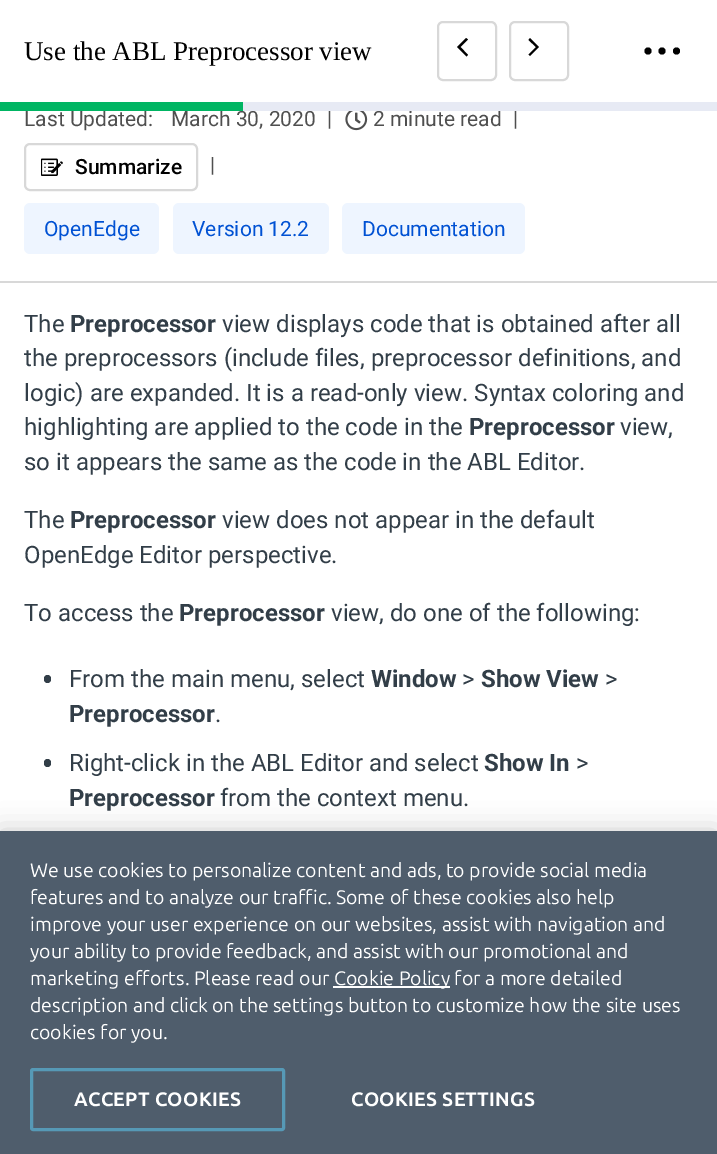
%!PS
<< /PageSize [717 1154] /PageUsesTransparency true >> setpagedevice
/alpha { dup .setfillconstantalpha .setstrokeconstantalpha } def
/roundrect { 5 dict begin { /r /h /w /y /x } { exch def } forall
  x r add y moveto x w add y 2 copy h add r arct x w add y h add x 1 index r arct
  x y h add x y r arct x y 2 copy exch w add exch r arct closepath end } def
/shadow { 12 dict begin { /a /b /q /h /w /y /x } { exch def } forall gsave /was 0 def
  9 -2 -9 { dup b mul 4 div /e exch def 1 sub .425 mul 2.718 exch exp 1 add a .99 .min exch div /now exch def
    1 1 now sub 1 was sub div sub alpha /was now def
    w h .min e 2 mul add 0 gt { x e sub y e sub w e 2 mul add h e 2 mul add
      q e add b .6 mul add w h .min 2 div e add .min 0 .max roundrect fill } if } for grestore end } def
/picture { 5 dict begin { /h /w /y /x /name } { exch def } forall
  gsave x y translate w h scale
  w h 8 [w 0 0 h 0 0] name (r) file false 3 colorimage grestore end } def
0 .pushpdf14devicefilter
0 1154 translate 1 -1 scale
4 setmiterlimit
1 setgray
0 0 717 1154 rectfill
/LiberationSerif-Regular [27 0 0 -27 0 0] selectfont
0 setgray
24 60 moveto (Use the ABL Preprocessor view) show
0.847 setgray
2 setlinewidth
438 22 58 58 5 roundrect stroke
0 setgray
newpath 468 39.5 moveto 466 38 lineto 457 47 lineto 466.5 56.5 lineto 468 55 lineto 460.5 47 lineto closepath fill
0.847 setgray
510 22 58 58 5 roundrect stroke
0 setgray
newpath 528.5 54.5 moveto 530 56 lineto 539 47 lineto 530 38 lineto 528.5 40 lineto 536 47 lineto closepath fill
newpath 648 51 3.5 0 360 arc closepath fill
newpath 662 51 3.5 0 360 arc closepath fill
newpath 676.5 51 3.5 0 360 arc closepath fill
/Roboto-Regular [21 0 0 -21 0 0] selectfont
0.31 setgray
24 126 moveto (Last Updated:) show
171 126 moveto (March 30, 2020) show
0 0.71 0.388 setrgbcolor
0 102 243 9 rectfill
0.31 setgray
373 126 moveto (2 minute read) show
0.906 0.918 0.957 setrgbcolor
243 102 474 9 rectfill
0.847 setgray
0 281 717 2 rectfill
0.31 setgray
327 126 moveto (|) show
(img1.rgb) 345 111 23 20 picture
513 126 moveto (|) show
0.847 setgray
25 144 172 46 5 roundrect stroke
(img2.rgb) 41 158 22 18 picture
/Roboto-Medium [21 0 0 -21 0 0] selectfont
0 setgray
75 174 moveto (Summarize) show
/Roboto-Regular [21 0 0 -21 0 0] selectfont
0.31 setgray
210 172 moveto (|) show
0.933 0.961 1 setrgbcolor
24 203 135 51 6 roundrect fill
0 0.318 0.827 setrgbcolor
44 236 moveto (OpenEdge) show
0.933 0.961 1 setrgbcolor
173 203 156 51 6 roundrect fill
0 0.318 0.827 setrgbcolor
192 236 moveto (Version 12.2) show
0.933 0.961 1 setrgbcolor
342 203 183 51 6 roundrect fill
0 0.318 0.827 setrgbcolor
362 236 moveto (Documentation) show
/Roboto-Regular [24 0 0 -24 0 0] selectfont
0.196 0.243 0.282 setrgbcolor
24 332 moveto (The) show
/Roboto-Bold [24 0 0 -24 0 0] selectfont
70 332 moveto (Preprocessor) show
/Roboto-Regular [24 0 0 -24 0 0] selectfont
222 332 moveto (view displays code that is obtained after all) show
24 366 moveto (the preprocessors \(include files, preprocessor definitions, and) show
24 401 moveto (logic\) are expanded. It is a read-only view. Syntax coloring and) show
24 435 moveto (highlighting are applied to the code in the) show
/Roboto-Bold [24 0 0 -24 0 0] selectfont
469 435 moveto (Preprocessor) show
/Roboto-Regular [24 0 0 -24 0 0] selectfont
620 435 moveto (view,) show
24 470 moveto (so it appears the same as the code in the ABL Editor.) show
24 528 moveto (The) show
/Roboto-Bold [24 0 0 -24 0 0] selectfont
70 528 moveto (Preprocessor) show
/Roboto-Regular [24 0 0 -24 0 0] selectfont
222 528 moveto (view does not appear in the default) show
24 563 moveto (OpenEdge Editor perspective.) show
24 621 moveto (To access the) show
/Roboto-Bold [24 0 0 -24 0 0] selectfont
179 621 moveto (Preprocessor) show
/Roboto-Regular [24 0 0 -24 0 0] selectfont
331 621 moveto (view, do one of the following:) show
44 675 7 8 3.5 roundrect fill
69 687 moveto (From the main menu, select) show
/Roboto-Bold [24 0 0 -24 0 0] selectfont
371 687 moveto (Window) show
/Roboto-Regular [24 0 0 -24 0 0] selectfont
462 687 moveto (>) show
/Roboto-Bold [24 0 0 -24 0 0] selectfont
481 687 moveto (Show View) show
/Roboto-Regular [24 0 0 -24 0 0] selectfont
605 687 moveto (>) show
/Roboto-Bold [24 0 0 -24 0 0] selectfont
69 722 moveto (Preprocessor) show
/Roboto-Regular [24 0 0 -24 0 0] selectfont
215 722 moveto (.) show
44 759 7 8 3.5 roundrect fill
69 771 moveto (Right-click in the ABL Editor and select) show
/Roboto-Bold [24 0 0 -24 0 0] selectfont
484 771 moveto (Show In) show
/Roboto-Regular [24 0 0 -24 0 0] selectfont
576 771 moveto (>) show
/Roboto-Bold [24 0 0 -24 0 0] selectfont
69 806 moveto (Preprocessor) show
/Roboto-Regular [24 0 0 -24 0 0] selectfont
220 806 moveto (from the context menu.) show
0 setgray
0 831 717 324 0 13.5 0.2 shadow
0.31 0.365 0.424 setrgbcolor
0 831 717 323 rectfill
/Ubuntu-Regular [19.5 0 0 -19.5 0 0] selectfont
1 setgray
30 877 moveto (We use cookies to personalize content and ads, to provide social media) show
30 904 moveto (features and to analyze our traffic. Some of these cookies also help) show
30 931 moveto (improve your user experience on our websites, assist with navigation and) show
30 958 moveto (your ability to provide feedback, and assist with our promotional and) show
30 985 moveto (marketing efforts. Please read our) show
333 986 117 2 rectfill
334 985 moveto (Cookie Policy for a more detailed) show
30 1012 moveto (description and click on the settings button to customize how the site uses) show
30 1039 moveto (cookies for you.) show
0.337 0.6 0.714 setrgbcolor
3 setlinewidth
31.5 1069.5 252 60 1.5 roundrect stroke
/Ubuntu-Bold [19.5 0 0 -19.5 0 0] selectfont
1 setgray
74 1106 moveto 0.25 0 (ACCEPT COOKIES) ashow
351 1106 moveto 0.25 0 (COOKIES SETTINGS) ashow
.poppdf14devicefilter showpage
